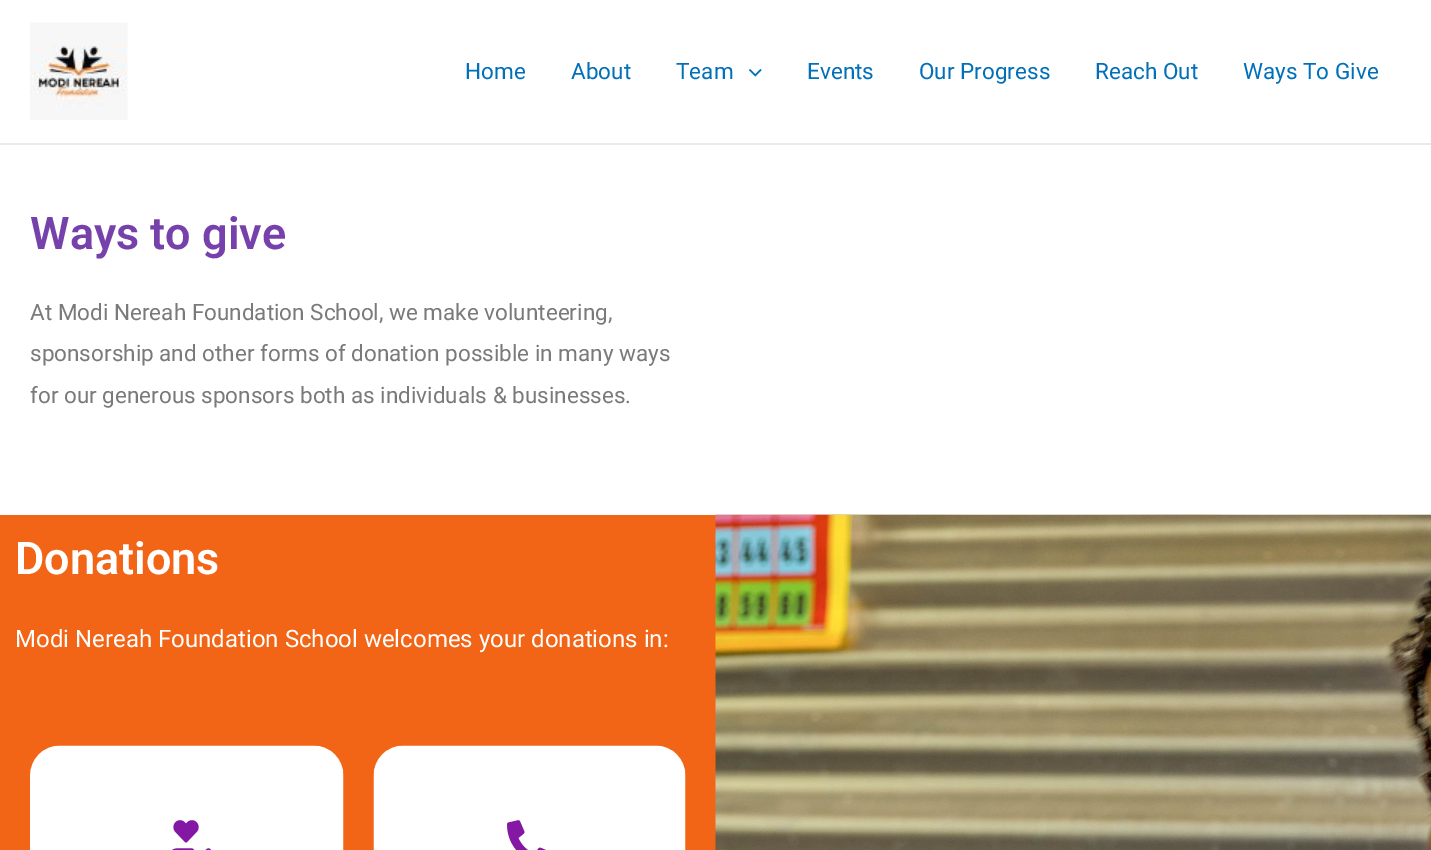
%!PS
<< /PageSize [1431 850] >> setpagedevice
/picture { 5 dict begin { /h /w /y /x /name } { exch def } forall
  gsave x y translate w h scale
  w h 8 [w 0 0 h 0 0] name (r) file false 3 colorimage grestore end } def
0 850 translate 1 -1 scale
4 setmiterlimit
1 setgray
0 0 1431 850 rectfill
0.918 setgray
0 143 1431 2 rectfill
(img1.rgb) 30 22 98 98 picture
/Roboto-Regular [22.5 0 0 -22.5 0 0] selectfont
0.004 0.439 0.725 setrgbcolor
465 79 moveto (Home) show
571 79 moveto (About) show
676 79 moveto (Team) show
(img2.rgb) 749 69 13 8 picture
807 79 moveto (Events) show
919 79 moveto (Our Progress) show
1095 79 moveto (Reach Out) show
1243 79 moveto (Ways To Give) show
/Roboto-SemiBold [45 0 0 -45 0 0] selectfont
0.463 0.255 0.671 setrgbcolor
30 249 moveto (Ways to give) show
/Roboto-Regular [22.5 0 0 -22.5 0 0] selectfont
0.478 setgray
30 320 moveto (At Modi Nereah Foundation School, we make volunteering,) show
30 361 moveto (sponsorship and other forms of donation possible in many ways) show
30 403 moveto (for our generous sponsors both as individuals & businesses.) show
0.953 0.396 0.086 setrgbcolor
0 515 716 335 rectfill
/Roboto-SemiBold [45 0 0 -45 0 0] selectfont
1 setgray
15 574 moveto (Donations) show
/Roboto-Regular [24 0 0 -24 0 0] selectfont
15 647 moveto (Modi Nereah Foundation School welcomes your donations in:) show
(img3.rgb) 30 745 314 105 picture
(img4.rgb) 172 820 39 30 picture
(img5.rgb) 373 745 313 105 picture
(img6.rgb) 507 820 39 30 picture
(img7.rgb) 715 514 716 336 picture
showpage
